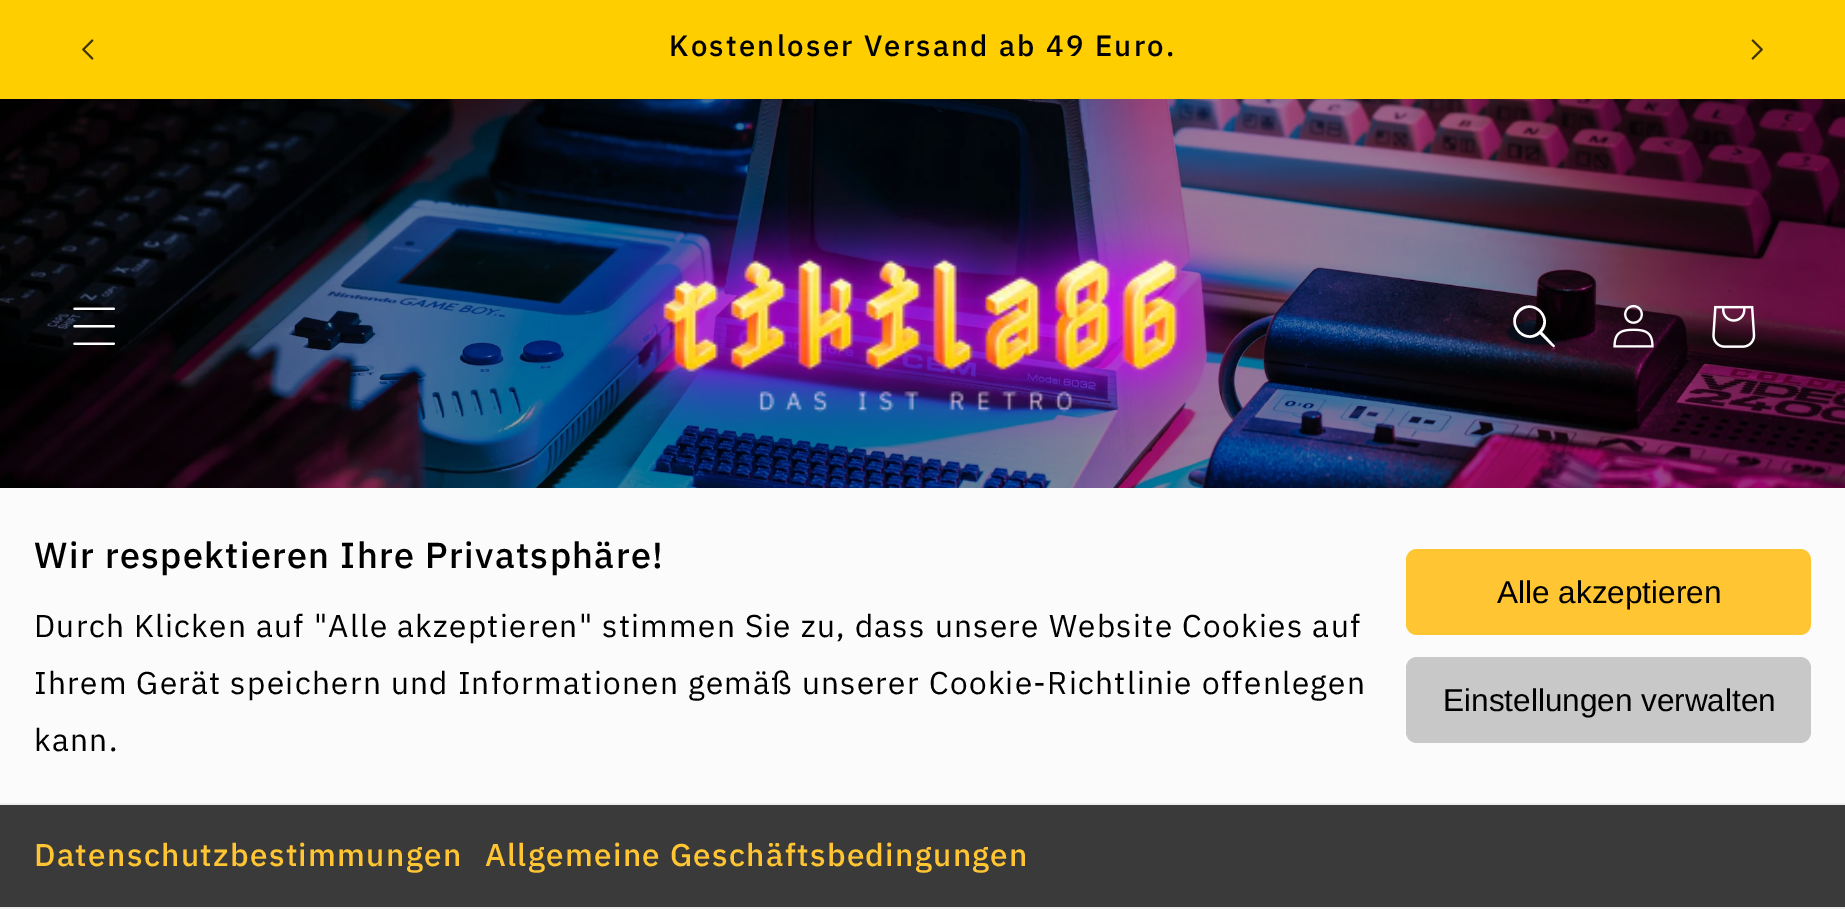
%!PS
<< /PageSize [1845 909] >> setpagedevice
/roundrect { 5 dict begin { /r /h /w /y /x } { exch def } forall
  x r add y moveto x w add y 2 copy h add r arct x w add y h add x 1 index r arct
  x y h add x y r arct x y 2 copy exch w add exch r arct closepath end } def
/picture { 5 dict begin { /h /w /y /x /name } { exch def } forall
  gsave x y translate w h scale
  w h 8 [w 0 0 h 0 0] name (r) file false 3 colorimage grestore end } def
0 909 translate 1 -1 scale
4 setmiterlimit
1 setgray
0 0 1845 909 rectfill
1 0.808 0 setrgbcolor
0 0 1845 99 rectfill
(img1.rgb) 82 39 12 21 picture
/IBMPlexSans-Medium [29.25 0 0 -29.25 0 0] selectfont
0 setgray
669 56 moveto 2.25 0 (Kostenloser Versand ab 49 Euro.) ashow
(img2.rgb) 1751 39 12 21 picture
(img3.rgb) 0 99 1845 389 picture
(img4.rgb) 73 307 42 38 picture
(img5.rgb) 604 201 638 237 picture
1 setgray
newpath 1539 331 moveto 1527 344 1507 325 1520 312 curveto 1533 299 1552 319 1539 331 curveto closepath 1540 334 moveto 1524 347 1504 324 1518 310 curveto 1533 296 1555 317 1542 332 curveto 1555 346 lineto 1554 347 lineto 1553 348 1542 336 1540 334 curveto closepath eofill
(img6.rgb) 1613 304 41 44 picture
(img7.rgb) 1712 305 44 43 picture
0.984 setgray
0 488 1845 315 rectfill
/IBMPlexSans-Medium [36 0 0 -36 0 0] selectfont
0 setgray
34 568 moveto 1.35 0 (Wir respektieren Ihre Privatsphäre!) ashow
/IBMPlexSans-Regular [31.5 0 0 -31.5 0 0] selectfont
34 637 moveto 1.35 0 (Durch Klicken auf "Alle akzeptieren" stimmen Sie zu, dass unsere Website Cookies auf) ashow
34 694 moveto 1.35 0 (Ihrem Gerät speichern und Informationen gemäß unserer Cookie-Richtlinie offenlegen) ashow
34 751 moveto 1.35 0 (kann.) ashow
1 0.773 0.196 setrgbcolor
1406 549 405 86 11 roundrect fill
/LiberationSans-Regular [31.5 0 0 -31.5 0 0] selectfont
0 setgray
1497 603 moveto (Alle akzeptieren) show
0.784 setgray
1406 657 405 86 11 roundrect fill
0 setgray
1443 711 moveto (Einstellungen verwalten) show
0.227 setgray
0 805 1845 102 rectfill
0.933 setgray
0 803 1845 2 rectfill
0 907 1845 2 rectfill
/IBMPlexSans-Medium [31.5 0 0 -31.5 0 0] selectfont
1 0.773 0.196 setrgbcolor
34 866 moveto 1.35 0 (Datenschutzbestimmungen) ashow
485 866 moveto 1.35 0 (Allgemeine Geschäftsbedingungen) ashow
showpage
